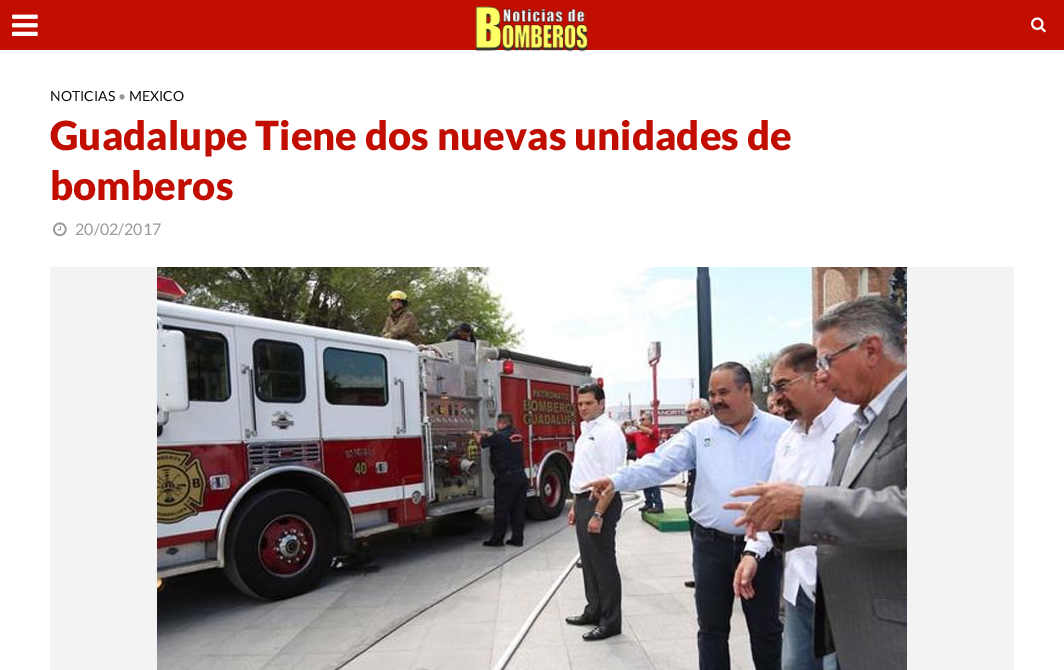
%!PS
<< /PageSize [1064 670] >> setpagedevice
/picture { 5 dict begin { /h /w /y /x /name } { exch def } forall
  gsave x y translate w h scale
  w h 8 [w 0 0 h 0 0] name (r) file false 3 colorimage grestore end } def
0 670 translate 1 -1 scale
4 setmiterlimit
1 setgray
0 0 1064 670 rectfill
0.757 0.055 0.004 setrgbcolor
0 0 1064 50 rectfill
(img1.rgb) 12 14 26 22 picture
(img2.rgb) 475 6 114 46 picture
(img3.rgb) 1031 17 15 16 picture
/Lato-Regular [14 0 0 -14 0 0] selectfont
0.055 setgray
50 101 moveto (NOTICIAS) show
0.6 setgray
118 101 moveto (•) show
0.055 setgray
129 101 moveto (MEXICO) show
/Lato-Black [40 0 0 -40 0 0] selectfont
0.757 0.055 0.004 setrgbcolor
50 150 moveto (Guadalupe Tiene dos nuevas unidades de) show
50 200 moveto (bomberos) show
(img4.rgb) 53 222 14 15 picture
/Lato-Regular [16 0 0 -16 0 0] selectfont
0.6 setgray
75 235 moveto (20/02/2017) show
0.953 setgray
50 267 964 403 rectfill
(img5.rgb) 157 267 750 403 picture
showpage
